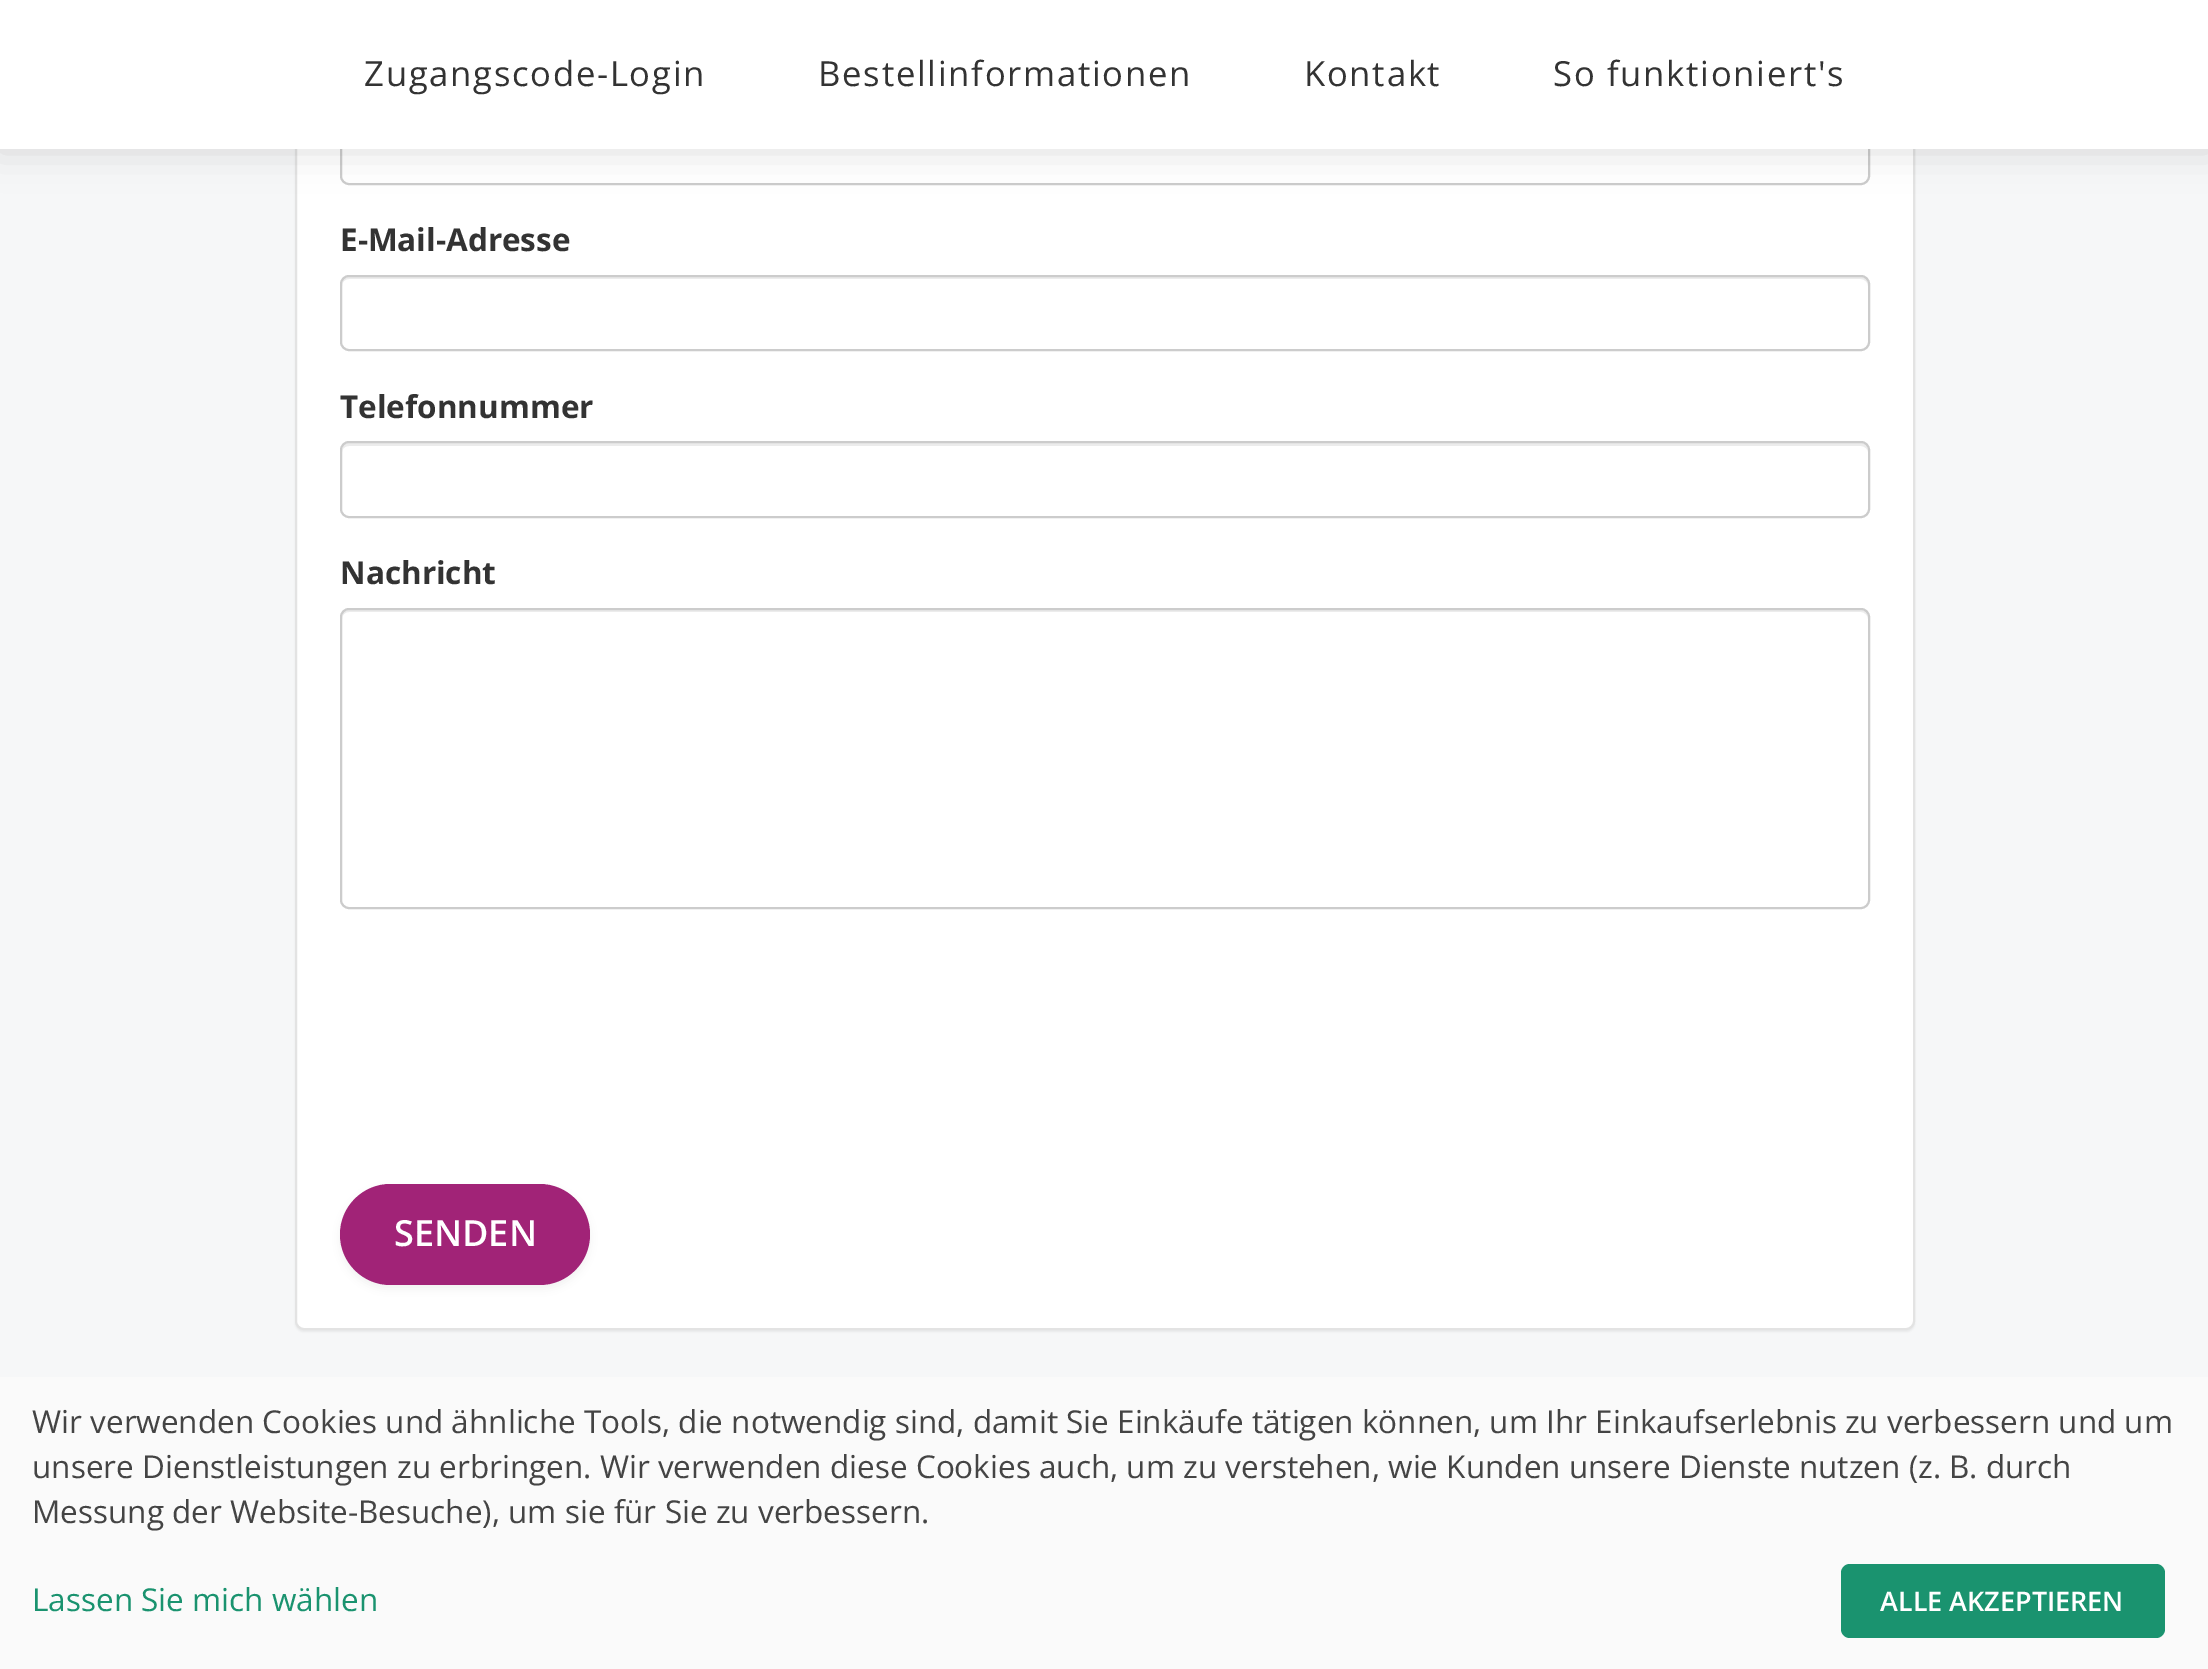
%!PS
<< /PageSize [2208 1669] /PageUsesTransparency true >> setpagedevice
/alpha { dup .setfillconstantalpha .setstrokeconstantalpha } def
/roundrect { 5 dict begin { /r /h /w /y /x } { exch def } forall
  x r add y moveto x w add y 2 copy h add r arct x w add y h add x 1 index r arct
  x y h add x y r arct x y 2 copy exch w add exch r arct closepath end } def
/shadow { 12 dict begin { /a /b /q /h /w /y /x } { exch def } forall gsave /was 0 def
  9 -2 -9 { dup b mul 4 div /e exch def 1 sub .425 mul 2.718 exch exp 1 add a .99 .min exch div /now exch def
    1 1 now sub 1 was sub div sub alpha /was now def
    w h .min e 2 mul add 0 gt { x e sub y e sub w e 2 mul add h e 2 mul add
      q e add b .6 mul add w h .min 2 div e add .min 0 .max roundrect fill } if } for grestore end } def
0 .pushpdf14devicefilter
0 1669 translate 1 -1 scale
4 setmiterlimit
0.965 0.969 0.973 setrgbcolor
0 0 2208 1669 rectfill
0 setgray
295 -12 1620 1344 9 1 0.05 shadow
1 setgray
296 -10 1618 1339 8 roundrect gsave fill grestore
0.89 setgray
2 setlinewidth
stroke
0.8 setgray
341 109 1528 75 8 roundrect stroke
0 setgray
-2 -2 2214 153 0 19 0.14 shadow
1 setgray
0 0 2208 149 rectfill
/OpenSans-Regular [34.6 0 0 -34.6 0 0] selectfont
0.2 setgray
364 86 moveto 1.75 0 (Zugangscode-Login) ashow
818 86 moveto 1.75 0 (Bestellinformationen) ashow
1304 86 moveto 1.75 0 (Kontakt) ashow
1553 86 moveto 1.75 0 (So funktioniert's) ashow
/OpenSans-Bold [31.5 0 0 -31.5 0 0] selectfont
340 251 moveto (E-Mail-Adresse) show
0.925 setgray
newpath 349 279 moveto 1861 279 lineto 1864 279 1868 282 1868 286 curveto 1868 282 1866 277 1861 277 curveto 349 277 lineto 344 277 342 282 342 286 curveto 342 282 345 279 349 279 curveto closepath fill
0.8 setgray
341 276 1528 74 8 roundrect stroke
0.2 setgray
340 418 moveto (Telefonnummer) show
0.925 setgray
newpath 349 446 moveto 1861 446 lineto 1864 446 1868 449 1868 452 curveto 1868 448 1866 443 1861 443 curveto 349 443 lineto 344 443 342 448 342 452 curveto 342 449 345 446 349 446 curveto closepath fill
0.8 setgray
341 442 1528 75 8 roundrect stroke
0.2 setgray
340 584 moveto (Nachricht) show
0.925 setgray
newpath 349 612 moveto 1861 612 lineto 1864 612 1868 615 1868 619 curveto 1868 615 1866 610 1861 610 curveto 349 610 lineto 344 610 342 615 342 619 curveto 342 615 345 612 349 612 curveto closepath fill
0.8 setgray
341 609 1528 299 8 roundrect stroke
0 setgray
340 1188 250 101 50.5 4.5 0.05 shadow
0.631 0.137 0.467 setrgbcolor
340 1184 250 101 50.5 roundrect fill
/OpenSans-SemiBold [36 0 0 -36 0 0] selectfont
1 setgray
394 1246 moveto (SENDEN) show
0.98 setgray
0 1377 2208 292 rectfill
/OpenSans-Regular [31.5 0 0 -31.5 0 0] selectfont
0.267 setgray
32 1433 moveto (Wir verwenden Cookies und ähnliche Tools, die notwendig sind, damit Sie Einkäufe tätigen können, um Ihr Einkaufserlebnis zu verbessern und um) show
32 1478 moveto (unsere Dienstleistungen zu erbringen. Wir verwenden diese Cookies auch, um zu verstehen, wie Kunden unsere Dienste nutzen \(z. B. durch) show
32 1523 moveto (Messung der Website-Besuche\), um sie für Sie zu verbessern.) show
0.102 0.576 0.435 setrgbcolor
32 1611 moveto (Lassen Sie mich wählen) show
1841 1564 324 74 9 roundrect fill
/OpenSans-SemiBold [27 0 0 -27 0 0] selectfont
1 setgray
1880 1611 moveto (ALLE AKZEPTIEREN) show
.poppdf14devicefilter showpage
